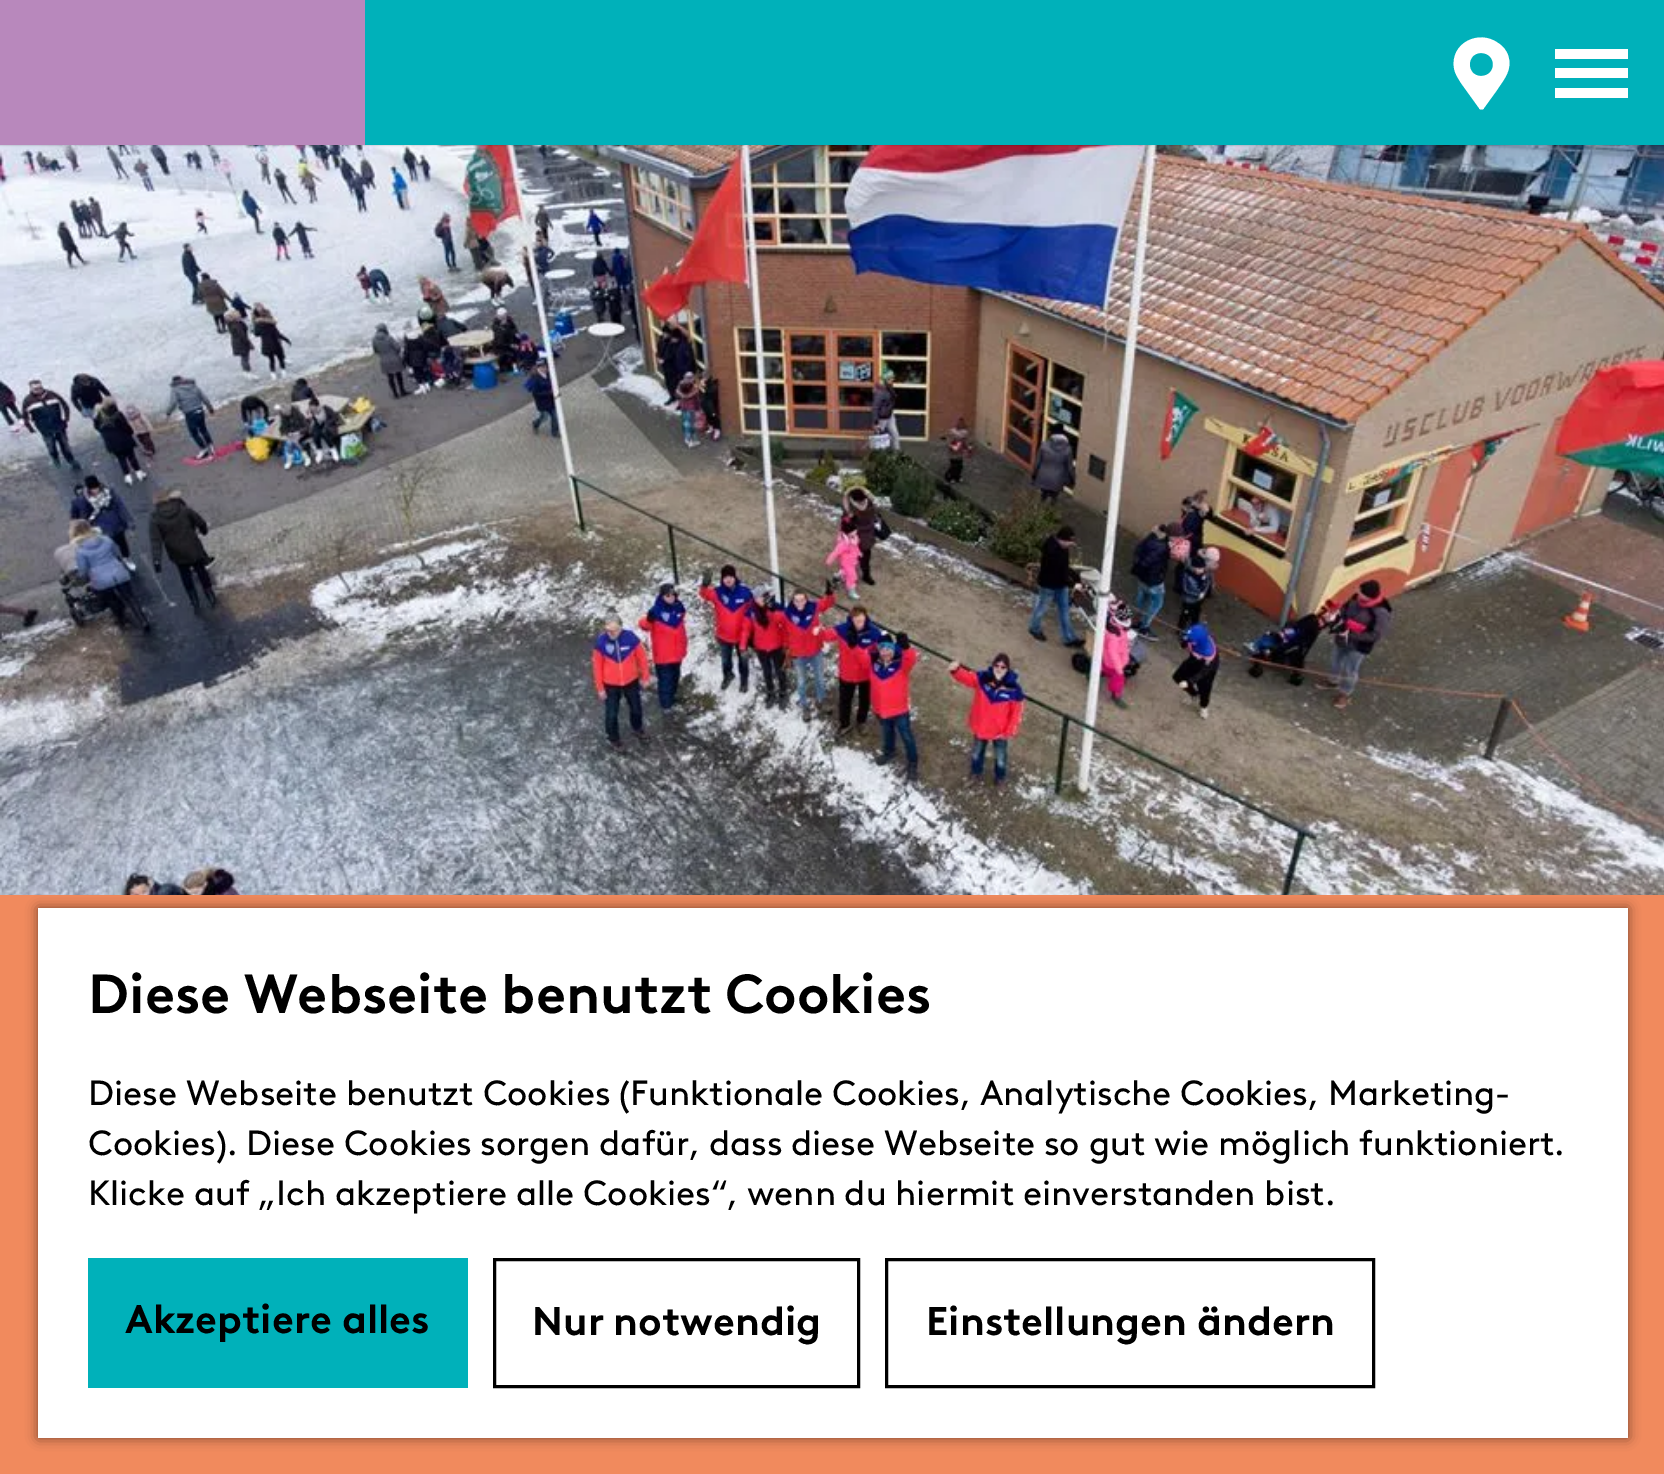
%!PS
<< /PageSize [1664 1474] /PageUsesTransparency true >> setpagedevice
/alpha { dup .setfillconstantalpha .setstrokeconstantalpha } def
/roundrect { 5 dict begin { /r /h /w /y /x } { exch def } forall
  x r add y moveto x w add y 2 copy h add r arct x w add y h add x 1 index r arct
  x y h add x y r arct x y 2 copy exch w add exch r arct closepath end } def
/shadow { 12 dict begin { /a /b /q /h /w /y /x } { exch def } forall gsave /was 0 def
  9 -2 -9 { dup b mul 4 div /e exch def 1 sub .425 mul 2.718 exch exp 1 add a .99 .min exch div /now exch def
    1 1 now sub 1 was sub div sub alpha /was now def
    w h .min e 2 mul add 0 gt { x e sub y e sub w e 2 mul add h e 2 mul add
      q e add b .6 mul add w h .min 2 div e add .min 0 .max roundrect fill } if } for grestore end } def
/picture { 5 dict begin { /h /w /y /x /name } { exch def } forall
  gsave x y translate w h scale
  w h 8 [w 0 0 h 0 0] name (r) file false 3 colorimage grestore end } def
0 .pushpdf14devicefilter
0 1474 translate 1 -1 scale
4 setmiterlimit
0.945 0.541 0.365 setrgbcolor
0 0 1664 1474 rectfill
(img1.rgb) 0 145 1664 750 picture
0 setgray
0 0 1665 145 0 1 0.3 shadow
0 0.694 0.729 setrgbcolor
365 0 1299 145 rectfill
0.722 0.533 0.737 setrgbcolor
0 0 365 145 rectfill
1 setgray
newpath 1479 108 moveto 1461 83 lineto 1458 78 1455 74 1454 68 curveto 1450 43 1479 29 1498 43 curveto 1503 46 1506 50 1508 55 curveto 1513 70 1504 79 1497 90 curveto 1484 108 lineto 1484 110 1479 110 1479 108 curveto closepath 1481 76 moveto 1497 76 1497 53 1481 53 curveto 1466 53 1466 76 1481 76 curveto closepath fill
newpath 1555 49 moveto 1628 49 lineto 1628 59 lineto 1555 59 lineto closepath 1555 68 moveto 1628 68 lineto 1628 78 lineto 1555 78 lineto closepath 1555 88 moveto 1628 88 lineto 1628 98 lineto 1555 98 lineto closepath fill
0 setgray
38 908 1590 530 0 6 0.5 shadow
1 setgray
38 908 1590 530 rectfill
/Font-Bold [55 0 0 -55 0 0] selectfont
0 setgray
88 1013 moveto (Diese Webseite benutzt Cookies) show
/Font-Regular [35 0 0 -35 0 0] selectfont
88 1105 moveto (Diese Webseite benutzt Cookies \(Funktionale Cookies, Analytische Cookies, Marketing-) show
88 1155 moveto (Cookies\). Diese Cookies sorgen dafür, dass diese Webseite so gut wie möglich funktioniert.) show
88 1205 moveto (Klicke auf „Ich akzeptiere alle Cookies“, wenn du hiermit einverstanden bist.) show
0 0.694 0.729 setrgbcolor
88 1258 380 130 rectfill
/Font-Bold [40 0 0 -40 0 0] selectfont
0 setgray
125 1333 moveto (Akzeptiere alles) show
3 setlinewidth
494.5 1259.5 364 127 rectstroke
532 1335 moveto (Nur notwendig) show
886.5 1259.5 487 127 rectstroke
926 1335 moveto (Einstellungen ändern) show
.poppdf14devicefilter showpage
